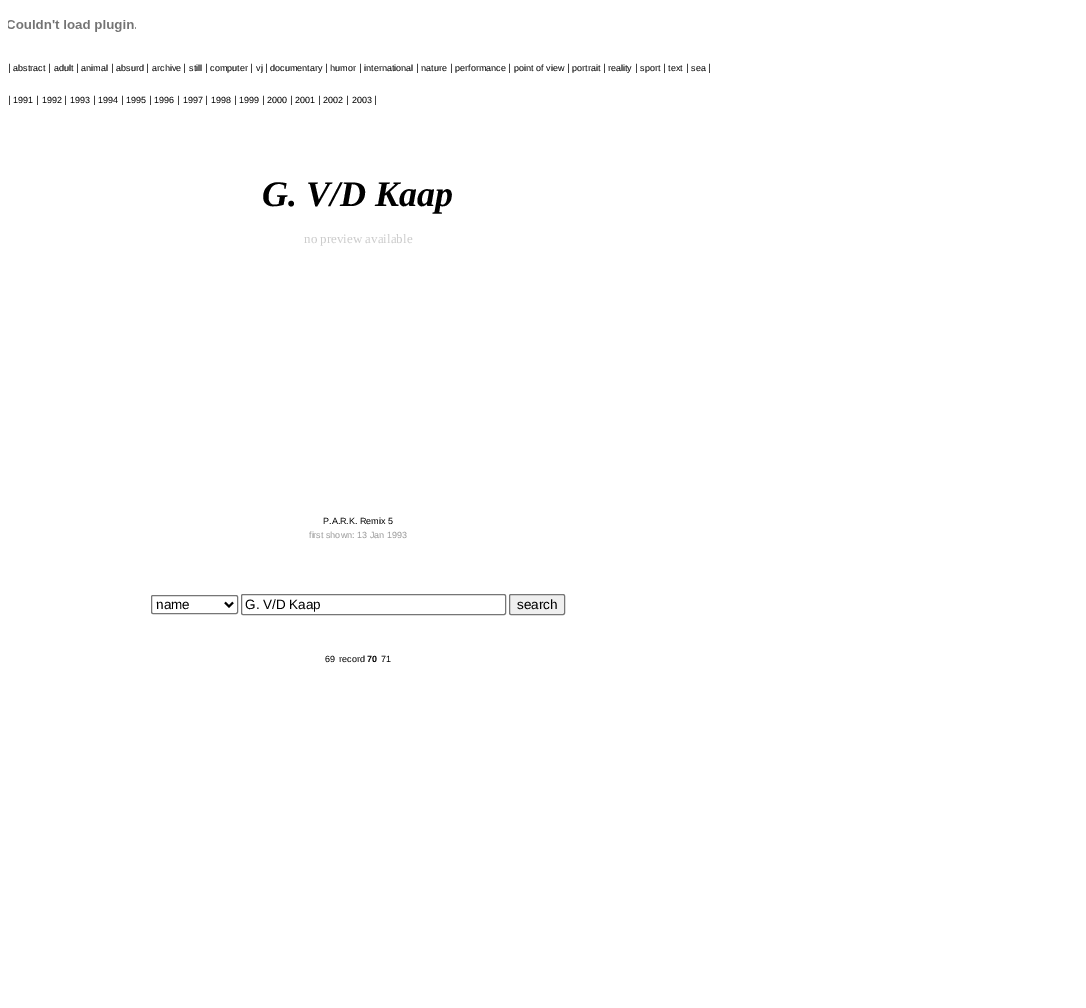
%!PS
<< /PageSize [1086 1008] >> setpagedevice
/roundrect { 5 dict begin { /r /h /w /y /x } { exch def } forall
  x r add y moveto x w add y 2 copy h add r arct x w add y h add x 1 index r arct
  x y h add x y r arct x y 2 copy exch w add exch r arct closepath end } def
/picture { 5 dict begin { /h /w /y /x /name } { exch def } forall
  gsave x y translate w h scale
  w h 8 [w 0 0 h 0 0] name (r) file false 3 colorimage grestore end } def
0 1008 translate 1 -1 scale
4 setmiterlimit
1 setgray
0 0 1086 1008 rectfill
(img1.rgb) 8 20 128 12 picture
/LiberationSans-Regular [10 0 0 -10 0 0] selectfont
0 setgray
8 71 moveto (|) show
/LiberationSans-Regular [9 0 0 -9 0 0] selectfont
13 71 moveto (abstract) show
/LiberationSans-Regular [10 0 0 -10 0 0] selectfont
48 71 moveto (|) show
/LiberationSans-Regular [9 0 0 -9 0 0] selectfont
54 71 moveto (adult) show
/LiberationSans-Regular [10 0 0 -10 0 0] selectfont
76 71 moveto (|) show
/LiberationSans-Regular [9 0 0 -9 0 0] selectfont
81 71 moveto (animal) show
/LiberationSans-Regular [10 0 0 -10 0 0] selectfont
111 71 moveto (|) show
/LiberationSans-Regular [9 0 0 -9 0 0] selectfont
116 71 moveto (absurd) show
/LiberationSans-Regular [10 0 0 -10 0 0] selectfont
146 71 moveto (|) show
/LiberationSans-Regular [9 0 0 -9 0 0] selectfont
152 71 moveto (archive) show
/LiberationSans-Regular [10 0 0 -10 0 0] selectfont
183 71 moveto (|) show
/LiberationSans-Regular [9 0 0 -9 0 0] selectfont
189 71 moveto (still) show
/LiberationSans-Regular [10 0 0 -10 0 0] selectfont
205 71 moveto (|) show
/LiberationSans-Regular [9 0 0 -9 0 0] selectfont
210 71 moveto (computer) show
/LiberationSans-Regular [10 0 0 -10 0 0] selectfont
250 71 moveto (|) show
/LiberationSans-Regular [9 0 0 -9 0 0] selectfont
256 71 moveto (vj) show
/LiberationSans-Regular [10 0 0 -10 0 0] selectfont
265 71 moveto (|) show
/LiberationSans-Regular [9 0 0 -9 0 0] selectfont
270 71 moveto (documentary) show
/LiberationSans-Regular [10 0 0 -10 0 0] selectfont
325 71 moveto (|) show
/LiberationSans-Regular [9 0 0 -9 0 0] selectfont
330 71 moveto (humor) show
/LiberationSans-Regular [10 0 0 -10 0 0] selectfont
359 71 moveto (|) show
/LiberationSans-Regular [9 0 0 -9 0 0] selectfont
364 71 moveto (international) show
/LiberationSans-Regular [10 0 0 -10 0 0] selectfont
416 71 moveto (|) show
/LiberationSans-Regular [9 0 0 -9 0 0] selectfont
421 71 moveto (nature) show
/LiberationSans-Regular [10 0 0 -10 0 0] selectfont
450 71 moveto (|) show
/LiberationSans-Regular [9 0 0 -9 0 0] selectfont
455 71 moveto (performance) show
/LiberationSans-Regular [10 0 0 -10 0 0] selectfont
508 71 moveto (|) show
/LiberationSans-Regular [9 0 0 -9 0 0] selectfont
514 71 moveto (point of view) show
/LiberationSans-Regular [10 0 0 -10 0 0] selectfont
567 71 moveto (|) show
/LiberationSans-Regular [9 0 0 -9 0 0] selectfont
572 71 moveto (portrait) show
/LiberationSans-Regular [10 0 0 -10 0 0] selectfont
603 71 moveto (|) show
/LiberationSans-Regular [9 0 0 -9 0 0] selectfont
608 71 moveto (reality) show
/LiberationSans-Regular [10 0 0 -10 0 0] selectfont
635 71 moveto (|) show
/LiberationSans-Regular [9 0 0 -9 0 0] selectfont
640 71 moveto (sport) show
/LiberationSans-Regular [10 0 0 -10 0 0] selectfont
663 71 moveto (|) show
/LiberationSans-Regular [9 0 0 -9 0 0] selectfont
668 71 moveto (text) show
/LiberationSans-Regular [10 0 0 -10 0 0] selectfont
686 71 moveto (|) show
/LiberationSans-Regular [9 0 0 -9 0 0] selectfont
691 71 moveto (sea) show
/LiberationSans-Regular [10 0 0 -10 0 0] selectfont
708 71 moveto (|) show
8 103 moveto (|) show
/LiberationSans-Regular [9 0 0 -9 0 0] selectfont
13 103 moveto (1991) show
/LiberationSans-Regular [10 0 0 -10 0 0] selectfont
36 103 moveto (|) show
/LiberationSans-Regular [9 0 0 -9 0 0] selectfont
42 103 moveto (1992) show
/LiberationSans-Regular [10 0 0 -10 0 0] selectfont
64 103 moveto (|) show
/LiberationSans-Regular [9 0 0 -9 0 0] selectfont
70 103 moveto (1993) show
/LiberationSans-Regular [10 0 0 -10 0 0] selectfont
93 103 moveto (|) show
/LiberationSans-Regular [9 0 0 -9 0 0] selectfont
98 103 moveto (1994) show
/LiberationSans-Regular [10 0 0 -10 0 0] selectfont
121 103 moveto (|) show
/LiberationSans-Regular [9 0 0 -9 0 0] selectfont
126 103 moveto (1995) show
/LiberationSans-Regular [10 0 0 -10 0 0] selectfont
149 103 moveto (|) show
/LiberationSans-Regular [9 0 0 -9 0 0] selectfont
154 103 moveto (1996) show
/LiberationSans-Regular [10 0 0 -10 0 0] selectfont
177 103 moveto (|) show
/LiberationSans-Regular [9 0 0 -9 0 0] selectfont
183 103 moveto (1997) show
/LiberationSans-Regular [10 0 0 -10 0 0] selectfont
205 103 moveto (|) show
/LiberationSans-Regular [9 0 0 -9 0 0] selectfont
211 103 moveto (1998) show
/LiberationSans-Regular [10 0 0 -10 0 0] selectfont
234 103 moveto (|) show
/LiberationSans-Regular [9 0 0 -9 0 0] selectfont
239 103 moveto (1999) show
/LiberationSans-Regular [10 0 0 -10 0 0] selectfont
262 103 moveto (|) show
/LiberationSans-Regular [9 0 0 -9 0 0] selectfont
267 103 moveto (2000) show
/LiberationSans-Regular [10 0 0 -10 0 0] selectfont
290 103 moveto (|) show
/LiberationSans-Regular [9 0 0 -9 0 0] selectfont
295 103 moveto (2001) show
/LiberationSans-Regular [10 0 0 -10 0 0] selectfont
318 103 moveto (|) show
/LiberationSans-Regular [9 0 0 -9 0 0] selectfont
323 103 moveto (2002) show
/LiberationSans-Regular [10 0 0 -10 0 0] selectfont
346 103 moveto (|) show
/LiberationSans-Regular [9 0 0 -9 0 0] selectfont
352 103 moveto (2003) show
/LiberationSans-Regular [10 0 0 -10 0 0] selectfont
374 103 moveto (|) show
/LiberationSerif-BoldItalic [36 0 0 -36 0 0] selectfont
262 206 moveto (G. V/D Kaap) show
/LiberationSerif-Regular [13 0 0 -13 0 0] selectfont
0.8 setgray
304 243 moveto (no preview available) show
/LiberationSans-Regular [9 0 0 -9 0 0] selectfont
0 setgray
323 524 moveto (P.A.R.K. Remix 5) show
0.6 setgray
309 538 moveto (first shown: 13 Jan 1993) show
0.463 setgray
151.5 595.5 86 18 1.5 roundrect stroke
0 setgray
2 setlinewidth
newpath 225 602.5 moveto 229 606.5 lineto 233 602.5 lineto stroke
/LiberationSans-Regular [13.5 0 0 -13.5 0 0] selectfont
156 609 moveto (name) show
0.463 setgray
1 setlinewidth
241.5 594.5 264 20 1.5 roundrect stroke
0 setgray
245 609 moveto (G. V/D Kaap) show
0.937 setgray
509.5 594.5 55 20 1.5 roundrect gsave fill grestore
0.463 setgray
stroke
0 setgray
517 609 moveto (search) show
/LiberationSans-Regular [9 0 0 -9 0 0] selectfont
325 662 moveto (69) show
339 662 moveto (record) show
/LiberationSans-Bold [9 0 0 -9 0 0] selectfont
367 662 moveto (70) show
/LiberationSans-Regular [9 0 0 -9 0 0] selectfont
381 662 moveto (71) show
showpage
